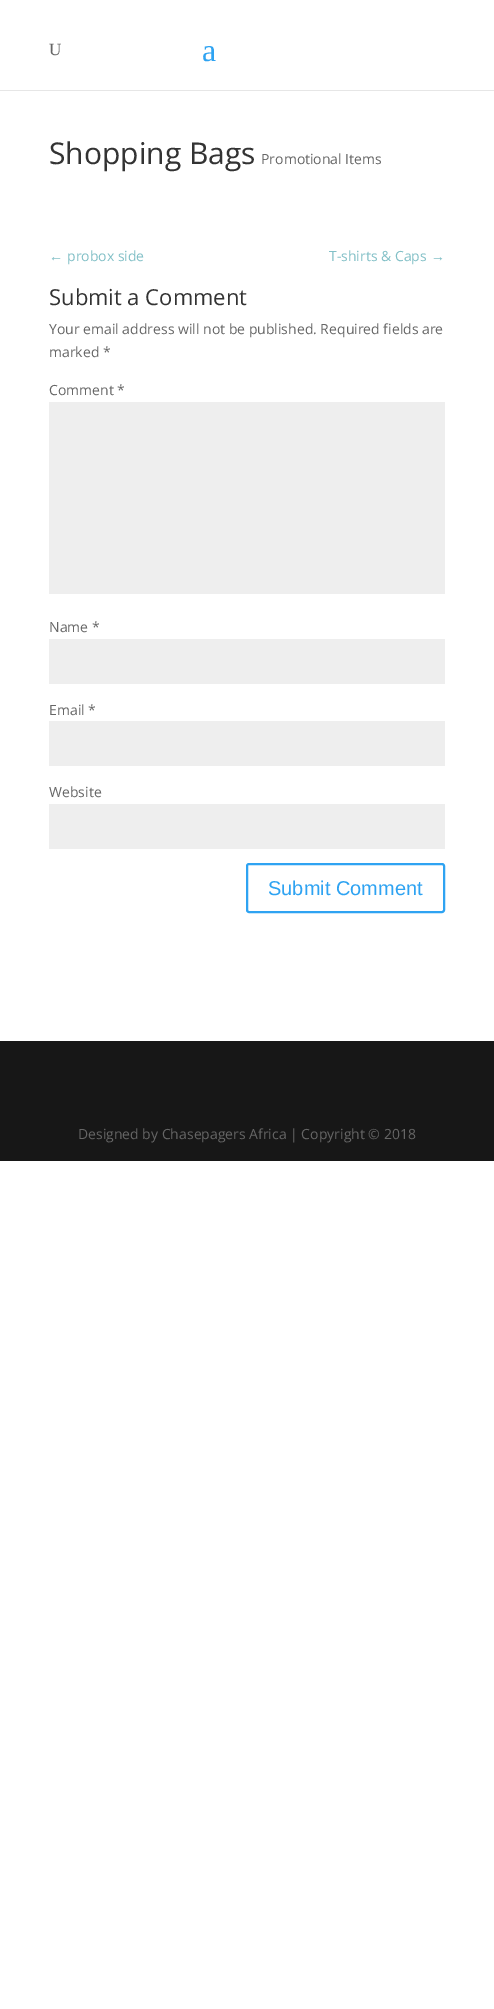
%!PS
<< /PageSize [494 2009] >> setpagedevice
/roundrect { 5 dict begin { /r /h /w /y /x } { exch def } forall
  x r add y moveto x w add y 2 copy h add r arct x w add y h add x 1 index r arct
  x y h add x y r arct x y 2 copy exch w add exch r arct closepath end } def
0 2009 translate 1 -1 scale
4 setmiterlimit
1 setgray
0 0 494 2009 rectfill
0.902 setgray
0 90 494 1 rectfill
/LiberationSerif-Regular [17 0 0 -17 0 0] selectfont
0.4 setgray
49 55 moveto (U) show
/LiberationSerif-Regular [32 0 0 -32 0 0] selectfont
0.18 0.639 0.949 setrgbcolor
202 61 moveto (a) show
/OpenSans-Regular [30 0 0 -30 0 0] selectfont
0.2 setgray
49 164 moveto (Shopping Bags) show
/OpenSans-Regular [14 0 0 -14 0 0] selectfont
0.4 setgray
261 164 moveto (Promotional Items) show
/LiberationSans-Regular [14 0 0 -14 0 0] selectfont
0.51 0.753 0.78 setrgbcolor
49 261 moveto (←) show
/OpenSans-Regular [14 0 0 -14 0 0] selectfont
67 261 moveto (probox side) show
329 261 moveto (T-shirts & Caps) show
/LiberationSans-Regular [14 0 0 -14 0 0] selectfont
431 261 moveto (→) show
/OpenSans-Regular [22 0 0 -22 0 0] selectfont
0.2 setgray
49 305 moveto (Submit a Comment) show
/OpenSans-Regular [14 0 0 -14 0 0] selectfont
0.4 setgray
49 334 moveto (Your email address will not be published. Required fields are) show
49 357 moveto (marked *) show
49 395 moveto (Comment *) show
0.933 setgray
49 402 396 192 rectfill
0.4 setgray
49 632 moveto (Name *) show
0.933 setgray
49 639 396 45 rectfill
0.4 setgray
49 715 moveto (Email *) show
0.933 setgray
49 721 396 45 rectfill
0.4 setgray
49 797 moveto (Website) show
0.933 setgray
49 804 396 45 rectfill
0.18 0.639 0.949 setrgbcolor
2 setlinewidth
247 864 197 48 2 roundrect stroke
/LiberationSans-Regular [20 0 0 -20 0 0] selectfont
268 895 moveto (Submit Comment) show
0.09 setgray
0 1041 494 120 rectfill
/OpenSans-Regular [14 0 0 -14 0 0] selectfont
0.4 setgray
78 1139 moveto (Designed by Chasepagers Africa | Copyright © 2018) show
showpage
